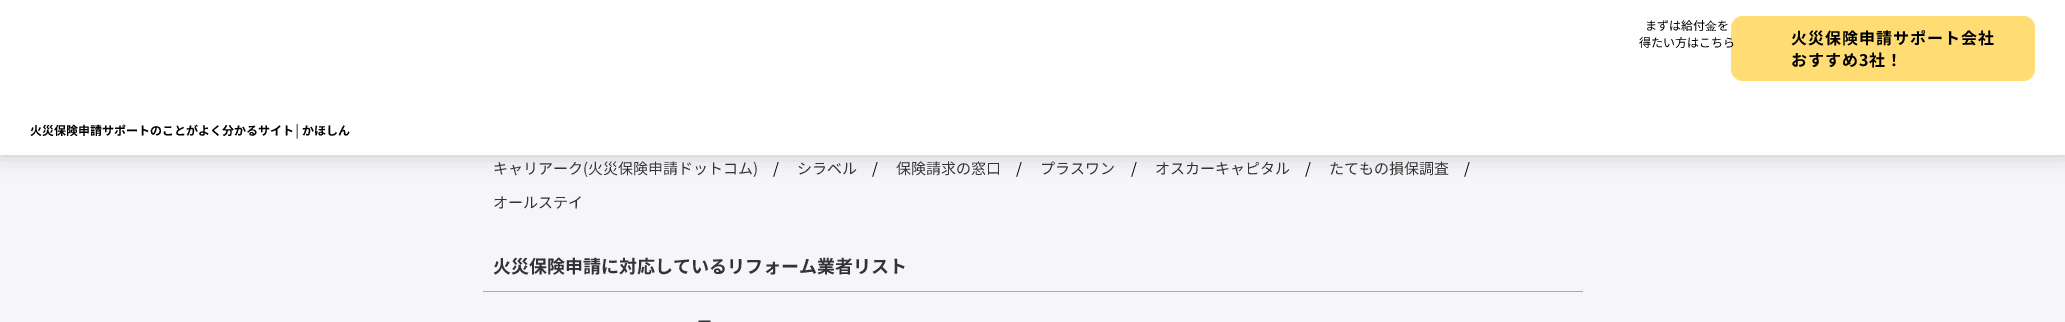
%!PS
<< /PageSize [2065 322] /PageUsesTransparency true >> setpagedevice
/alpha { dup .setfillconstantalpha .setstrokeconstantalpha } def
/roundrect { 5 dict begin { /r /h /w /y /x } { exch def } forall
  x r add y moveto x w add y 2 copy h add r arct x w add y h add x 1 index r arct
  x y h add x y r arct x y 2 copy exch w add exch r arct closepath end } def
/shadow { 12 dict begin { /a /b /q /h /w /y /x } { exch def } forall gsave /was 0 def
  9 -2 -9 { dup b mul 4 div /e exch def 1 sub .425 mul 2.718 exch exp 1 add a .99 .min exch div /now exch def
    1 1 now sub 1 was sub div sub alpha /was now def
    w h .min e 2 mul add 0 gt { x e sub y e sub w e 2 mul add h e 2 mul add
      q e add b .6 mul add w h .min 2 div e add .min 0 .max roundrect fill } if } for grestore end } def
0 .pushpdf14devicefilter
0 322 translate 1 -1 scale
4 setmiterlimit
0.965 0.965 0.98 setrgbcolor
0 0 2065 322 rectfill
0 setgray
0 0 2065 155 0 10 0.2 shadow
1 setgray
0 0 2065 155 rectfill
/NotoSansJP-Regular [12 0 0 -12 0 0] selectfont
0 setgray
1645 30 moveto (まずは給付) show
/WenQuanYiZenHei-Medium [12 0 0 -12 0 0] selectfont
1705 30 moveto (⾦) show
/NotoSansJP-Regular [12 0 0 -12 0 0] selectfont
1717 30 moveto (を) show
1 0.863 0.455 setrgbcolor
1731 16 304 65 12 roundrect fill
0 setgray
1639 47 moveto (得たい方はこちら) show
/NotoSansJP-Bold [16 0 0 -16 0 0] selectfont
1791 44 moveto 1 0 (火災保険申請サポート会社) ashow
1791 66 moveto 1 0 (おすすめ3社！) ashow
/NotoSansJP-Bold [12 0 0 -12 0 0] selectfont
30 135 moveto (火災保険申請サポートのことがよく分かるサイト) show
/LiberationSans-Bold [12 0 0 -12 0 0] selectfont
294 135 moveto (│) show
/NotoSansJP-Bold [12 0 0 -12 0 0] selectfont
302 135 moveto (かほしん) show
/NotoSansJP-Regular [15 0 0 -15 0 0] selectfont
0.2 setgray
493 174 moveto (キャリアーク\(火災保険申請ドットコム\)) show
0 setgray
773 174 moveto (/) show
0.2 setgray
797 174 moveto (シラベル) show
0 setgray
872 174 moveto (/) show
0.2 setgray
896 174 moveto (保険請求の窓口) show
0 setgray
1016 174 moveto (/) show
0.2 setgray
1040 174 moveto (プラスワン) show
0 setgray
1131 174 moveto (/) show
0.2 setgray
1155 174 moveto (オスカーキャピタル) show
0 setgray
1305 174 moveto (/) show
0.2 setgray
1329 174 moveto (たてもの損保調査) show
0 setgray
1464 174 moveto (/) show
0.2 setgray
493 208 moveto (オールステイ) show
0.667 setgray
483 291 1100 1 rectfill
/NotoSansJP-Bold [18 0 0 -18 0 0] selectfont
0.2 setgray
493 273 moveto (火災保険申請に対応しているリフォーム業者リスト) show
/NotoSansJP-Regular [15 0 0 -15 0 0] selectfont
697 327 moveto (ー) show
.poppdf14devicefilter showpage
